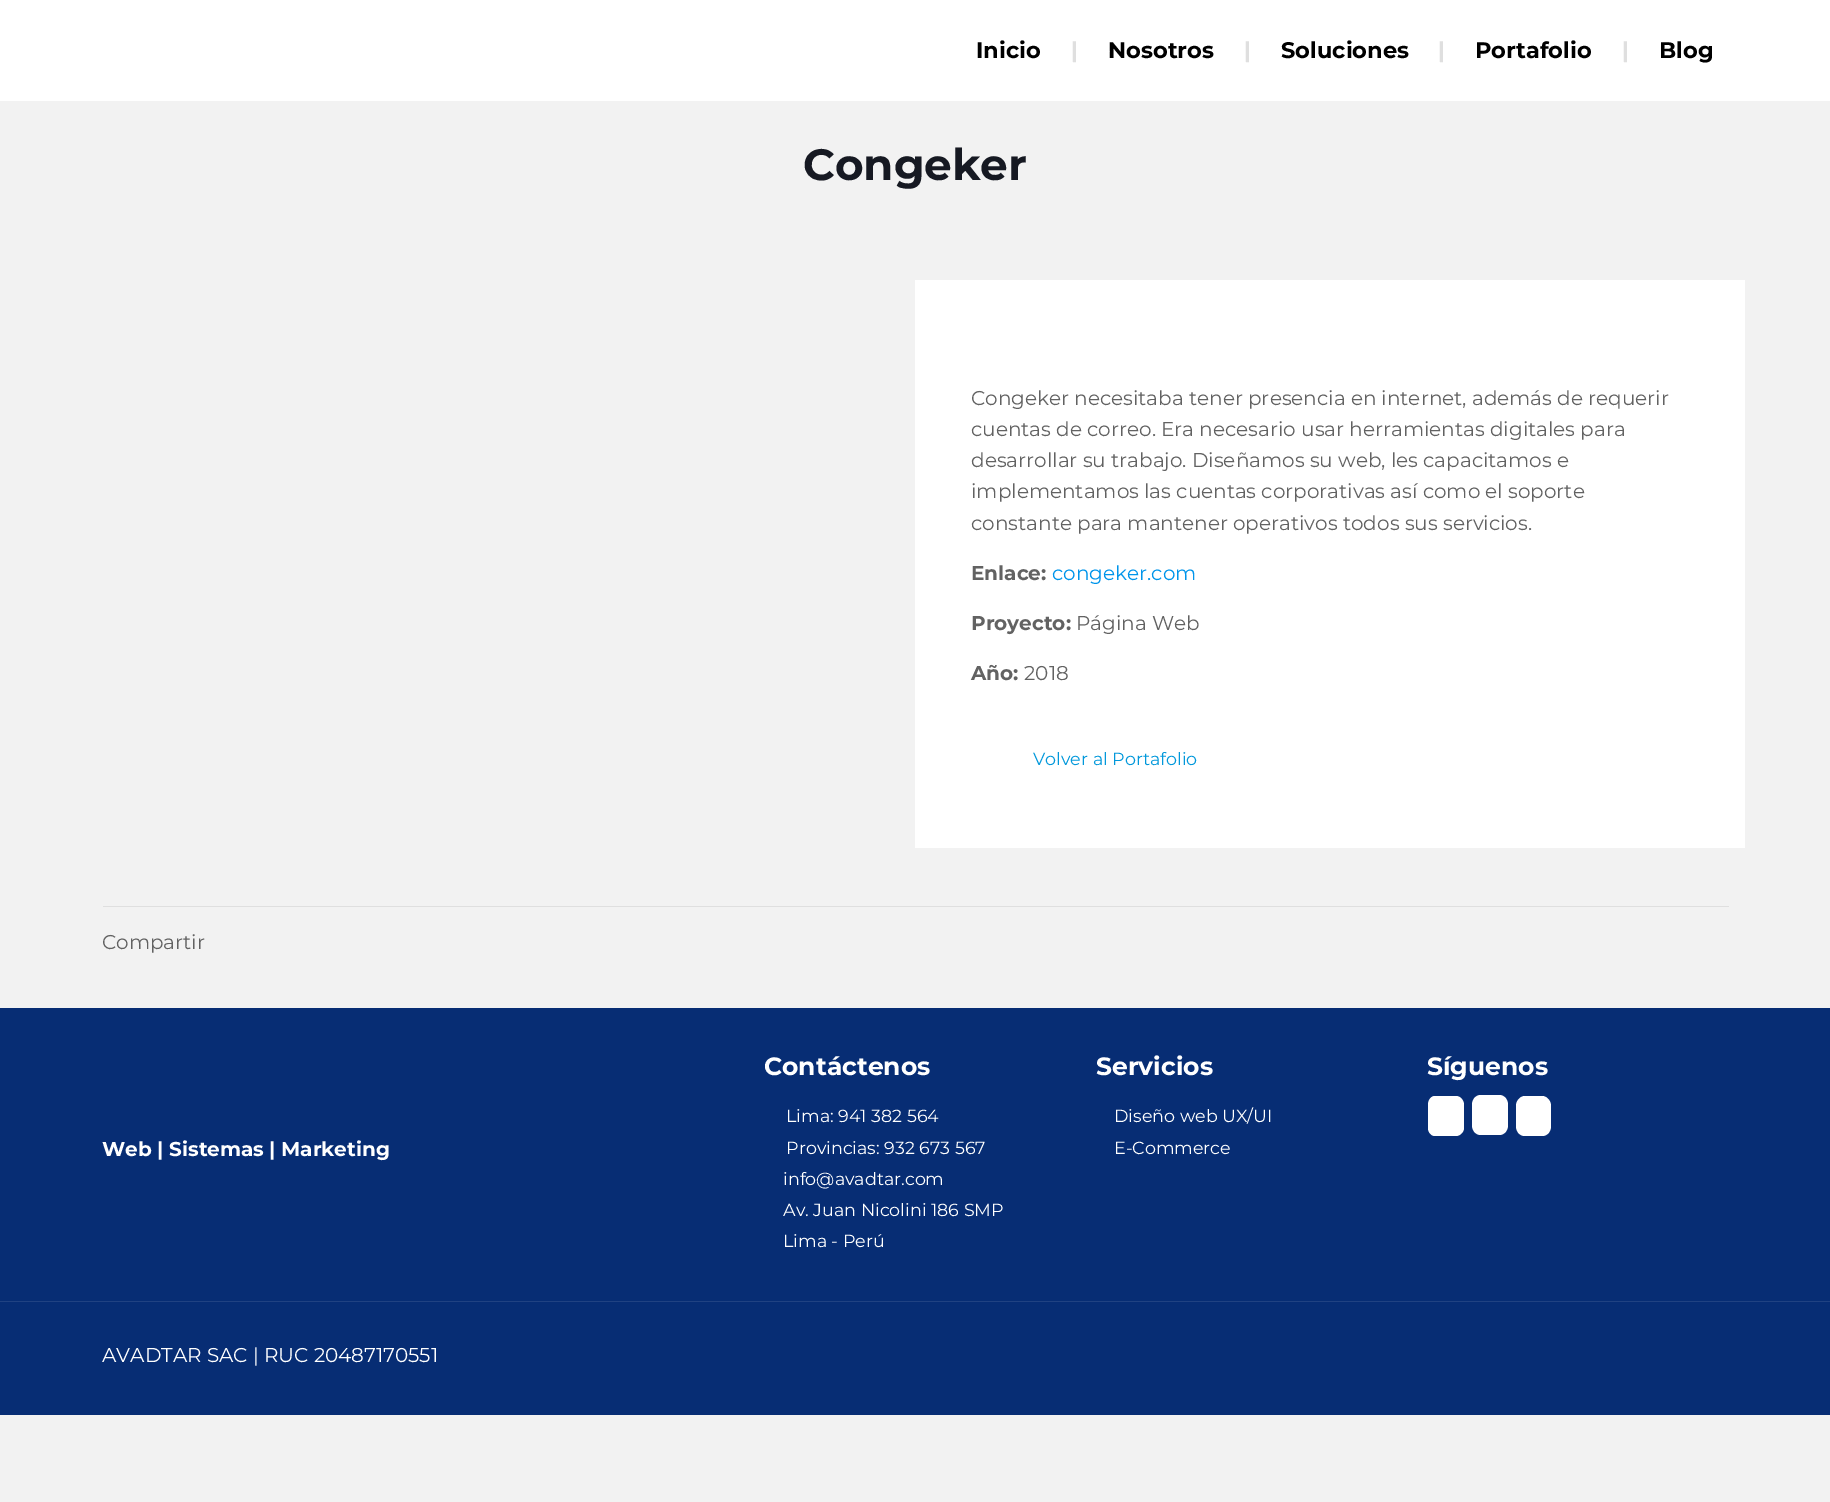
%!PS
<< /PageSize [1830 1502] >> setpagedevice
0 1502 translate 1 -1 scale
4 setmiterlimit
0.949 setgray
0 0 1830 1502 rectfill
1 setgray
0 0 1830 101 rectfill
/Montserrat-Bold [22.5 0 0 -22.5 0 0] selectfont
0 setgray
976 58 moveto (Inicio) show
0.875 setgray
1071 58 moveto (|) show
0 setgray
1108 58 moveto (Nosotros) show
0.875 setgray
1244 58 moveto (|) show
0 setgray
1281 58 moveto (Soluciones) show
0.875 setgray
1438 58 moveto (|) show
0 setgray
1475 58 moveto (Portafolio) show
0.875 setgray
1622 58 moveto (|) show
0 setgray
1659 58 moveto (Blog) show
/Montserrat-Bold [43.75 0 0 -43.75 0 0] selectfont
0.086 0.098 0.133 setrgbcolor
803 180 moveto (Congeker) show
1 setgray
915 280 830 568 rectfill
/Montserrat-Regular [20 0 0 -20 0 0] selectfont
0.384 setgray
971 405 moveto (Congeker necesitaba tener presencia en internet, además de requerir) show
971 436 moveto (cuentas de correo. Era necesario usar herramientas digitales para) show
971 467 moveto (desarrollar su trabajo. Diseñamos su web, les capacitamos e) show
971 498 moveto (implementamos las cuentas corporativas así como el soporte) show
971 530 moveto (constante para mantener operativos todos sus servicios.) show
/Montserrat-Bold [20 0 0 -20 0 0] selectfont
971 580 moveto (Enlace:) show
/Montserrat-Regular [20 0 0 -20 0 0] selectfont
0 0.584 0.922 setrgbcolor
1052 580 moveto (congeker.com) show
/Montserrat-Bold [20 0 0 -20 0 0] selectfont
0.384 setgray
971 630 moveto (Proyecto:) show
/Montserrat-Regular [20 0 0 -20 0 0] selectfont
1076 630 moveto (Página Web) show
/Montserrat-Bold [20 0 0 -20 0 0] selectfont
971 680 moveto (Año:) show
/Montserrat-Regular [20 0 0 -20 0 0] selectfont
1024 680 moveto (2018) show
/Montserrat-Regular [17.5 0 0 -17.5 0 0] selectfont
0.004 0.596 0.859 setrgbcolor
1033 765 moveto (Volver al Portafolio) show
0.875 setgray
103 906 1626 1 rectfill
/Montserrat-Regular [20 0 0 -20 0 0] selectfont
0.384 setgray
102 949 moveto (Compartir) show
0.027 0.176 0.455 setrgbcolor
0 1008 1830 407 rectfill
/Montserrat-Bold [25 0 0 -25 0 0] selectfont
1 setgray
764 1075 moveto (Contáctenos) show
/Montserrat-Regular [17.5 0 0 -17.5 0 0] selectfont
786 1122 moveto (Lima: 941 382 564) show
786 1154 moveto (Provincias: 932 673 567) show
783 1185 moveto (info@avadtar.com) show
783 1216 moveto (Av. Juan Nicolini 186 SMP) show
783 1247 moveto (Lima - Perú) show
/Montserrat-Bold [25 0 0 -25 0 0] selectfont
1096 1075 moveto (Servicios) show
/Montserrat-Regular [17.5 0 0 -17.5 0 0] selectfont
1114 1122 moveto (Diseño web UX/UI) show
1114 1154 moveto (E-Commerce) show
/Montserrat-Bold [25 0 0 -25 0 0] selectfont
1427 1075 moveto (Síguenos) show
newpath 1435 1096 moveto 1456 1096 lineto 1460 1096 1464 1100 1464 1105 curveto 1464 1128 lineto 1464 1132 1460 1136 1456 1136 curveto 1435 1136 lineto 1431 1136 1428 1132 1428 1128 curveto 1428 1105 lineto 1428 1100 1431 1096 1435 1096 curveto closepath fill
newpath 1481 1095 moveto 1499 1095 lineto 1504 1095 1508 1099 1508 1105 curveto 1508 1125 lineto 1508 1131 1504 1135 1499 1135 curveto 1481 1135 lineto 1476 1135 1472 1131 1472 1125 curveto 1472 1105 lineto 1472 1099 1476 1095 1481 1095 curveto closepath fill
newpath 1525 1096 moveto 1542 1096 lineto 1547 1096 1551 1101 1551 1106 curveto 1551 1126 lineto 1551 1132 1547 1136 1542 1136 curveto 1525 1136 lineto 1520 1136 1516 1132 1516 1126 curveto 1516 1106 lineto 1516 1101 1520 1096 1525 1096 curveto closepath fill
/Montserrat-Bold [20 0 0 -20 0 0] selectfont
102 1156 moveto (Web | Sistemas | Marketing) show
0.125 0.259 0.51 setrgbcolor
0 1301 1830 1 rectfill
/Montserrat-Regular [20 0 0 -20 0 0] selectfont
1 setgray
102 1362 moveto (AVADTAR SAC | RUC 20487170551) show
showpage
